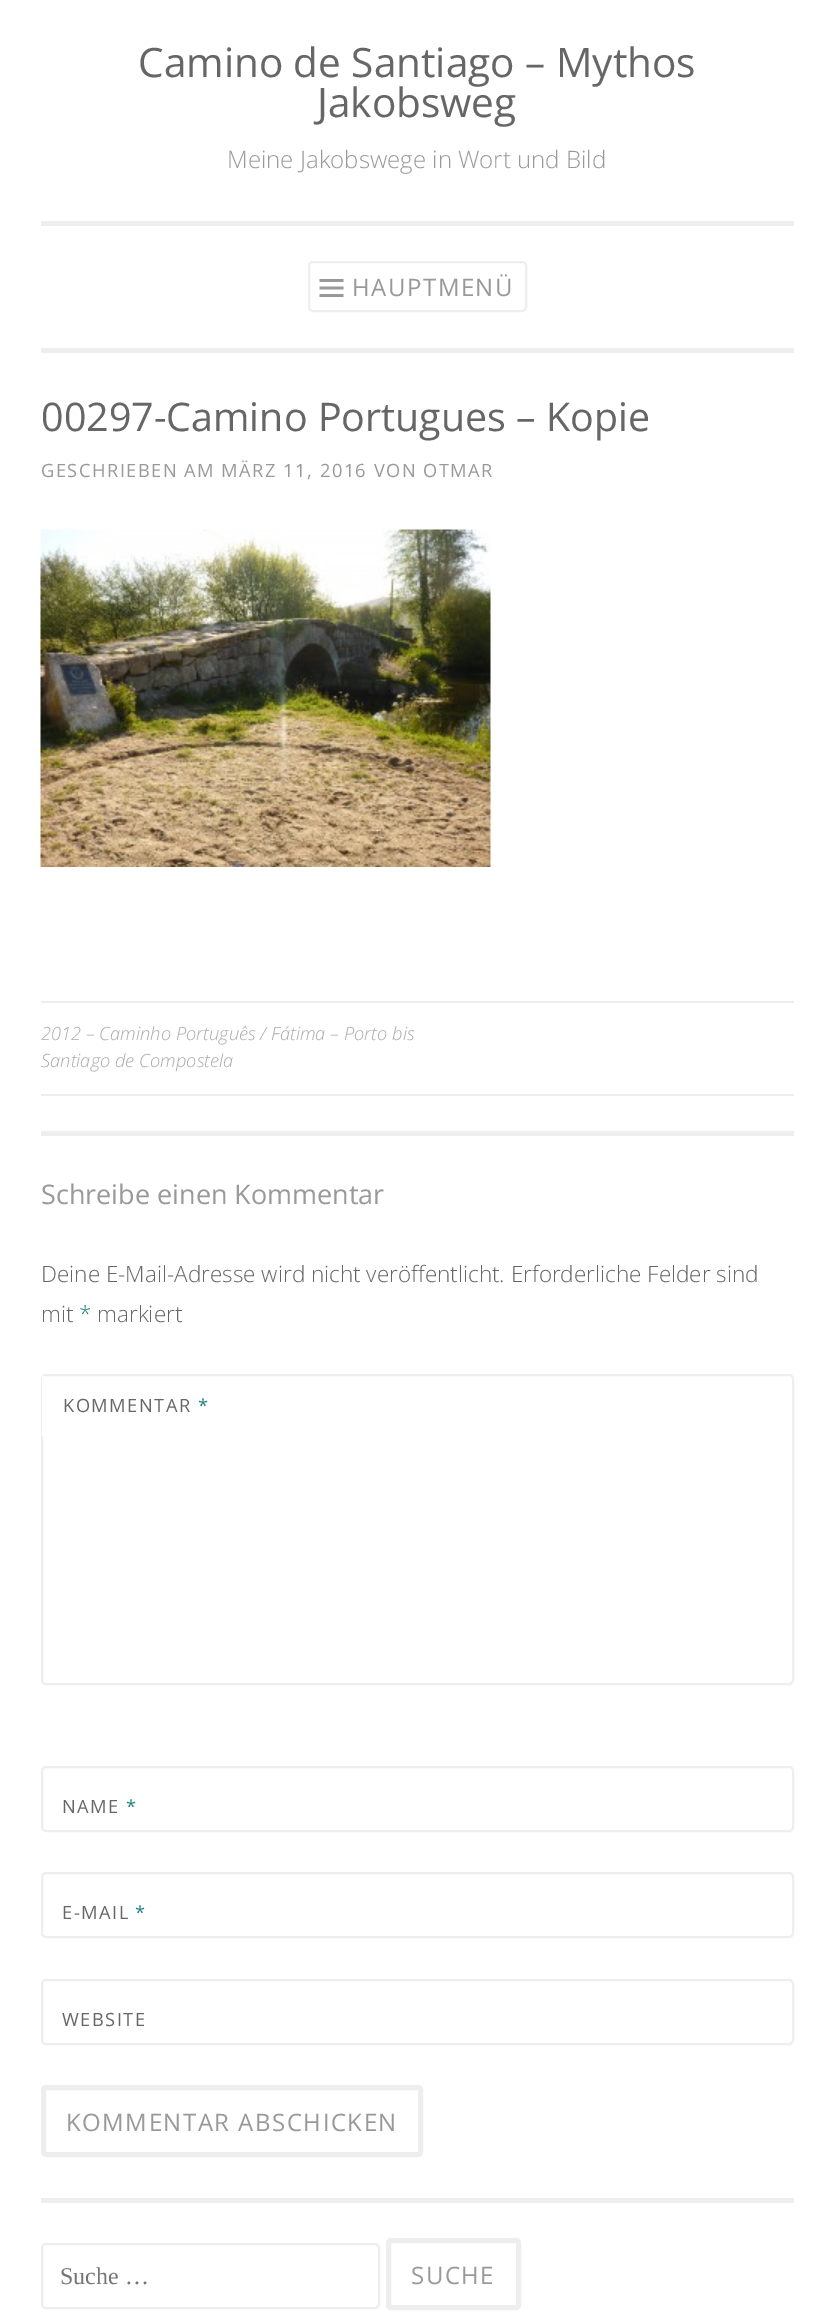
%!PS
<< /PageSize [833 2316] >> setpagedevice
/roundrect { 5 dict begin { /r /h /w /y /x } { exch def } forall
  x r add y moveto x w add y 2 copy h add r arct x w add y h add x 1 index r arct
  x y h add x y r arct x y 2 copy exch w add exch r arct closepath end } def
/picture { 5 dict begin { /h /w /y /x /name } { exch def } forall
  gsave x y translate w h scale
  w h 8 [w 0 0 h 0 0] name (r) file false 3 colorimage grestore end } def
0 2316 translate 1 -1 scale
4 setmiterlimit
1 setgray
0 0 833 2316 rectfill
0.933 setgray
41 348 753 5 rectfill
/OpenSans-Regular [40.5 0 0 -40.5 0 0] selectfont
0.4 setgray
138 77 moveto (Camino de Santiago – Mythos) show
317 117 moveto (Jakobsweg) show
/OpenSans-Light [24 0 0 -24 0 0] selectfont
0.6 setgray
227 168 moveto (Meine Jakobswege in Wort und Bild) show
0.933 setgray
41 221 753 5 rectfill
2 setlinewidth
309 262 217 49 4 roundrect stroke
(img1.rgb) 319 279 25 18 picture
/OpenSans-Regular [24 0 0 -24 0 0] selectfont
0.6 setgray
352 296 moveto 1.5 0 (HAUPTMENÜ) ashow
/OpenSans-Regular [39.4 0 0 -39.4 0 0] selectfont
0.4 setgray
41 431 moveto (00297-Camino Portugues – Kopie) show
/OpenSans-Regular [18.25 0 0 -18.25 0 0] selectfont
0.6 setgray
41 477 moveto 1.5 0 (GESCHRIEBEN AM MÄRZ 11, 2016 VON OTMAR) ashow
(img2.rgb) 40 529 451 338 picture
0.933 setgray
41 1001 753 2 rectfill
41 1094 753 2 rectfill
/OpenSans-LightItalic [18.25 0 0 -18.25 0 0] selectfont
0.667 setgray
41 1040 moveto (2012 – Caminho Português / Fátima – Porto bis) show
41 1067 moveto (Santiago de Compostela) show
0.933 setgray
41 1131 753 5 rectfill
/OpenSans-Regular [27 0 0 -27 0 0] selectfont
0.6 setgray
41 1204 moveto (Schreibe einen Kommentar) show
/OpenSans-Light [22.5 0 0 -22.5 0 0] selectfont
0.4 setgray
41 1282 moveto (Deine E-Mail-Adresse wird nicht veröffentlicht. Erforderliche Felder sind) show
41 1322 moveto (mit) show
0.11 0.486 0.486 setrgbcolor
79 1322 moveto (*) show
0.4 setgray
97 1322 moveto (markiert) show
0.933 setgray
42 1375 751 309 4 roundrect stroke
1 setgray
42 1376 3 60 rectfill
/OpenSans-Regular [18.25 0 0 -18.25 0 0] selectfont
0.4 setgray
63 1412 moveto 1.5 0 (KOMMENTAR) ashow
0.11 0.486 0.486 setrgbcolor
198 1412 moveto 1.5 0 (*) ashow
0.933 setgray
42 1767 751 64 4 roundrect stroke
0.4 setgray
62 1813 moveto 1.5 0 (NAME) ashow
0.11 0.486 0.486 setrgbcolor
126 1813 moveto 1.5 0 (*) ashow
0.933 setgray
42 1873 751 64 4 roundrect stroke
0.4 setgray
62 1919 moveto 1.5 0 (E-MAIL) ashow
0.11 0.486 0.486 setrgbcolor
135 1919 moveto 1.5 0 (*) ashow
0.933 setgray
42 1980 751 64 4 roundrect stroke
0.4 setgray
62 2026 moveto 1.5 0 (WEBSITE) ashow
0.933 setgray
5 setlinewidth
43.5 2087.5 377 67 2.5 roundrect stroke
/OpenSans-Regular [24 0 0 -24 0 0] selectfont
0.6 setgray
66 2131 moveto 1.5 0 (KOMMENTAR ABSCHICKEN) ashow
0.933 setgray
41 2198 753 5 rectfill
2 setlinewidth
42 2244 337 64 4 roundrect stroke
/LiberationSerif-Regular [24 0 0 -24 0 0] selectfont
0.459 setgray
60 2284 moveto (Suche …) show
0.933 setgray
5 setlinewidth
388.5 2240.5 130 67 2.5 roundrect stroke
/OpenSans-Regular [24 0 0 -24 0 0] selectfont
0.6 setgray
411 2284 moveto 1.5 0 (SUCHE) ashow
showpage
